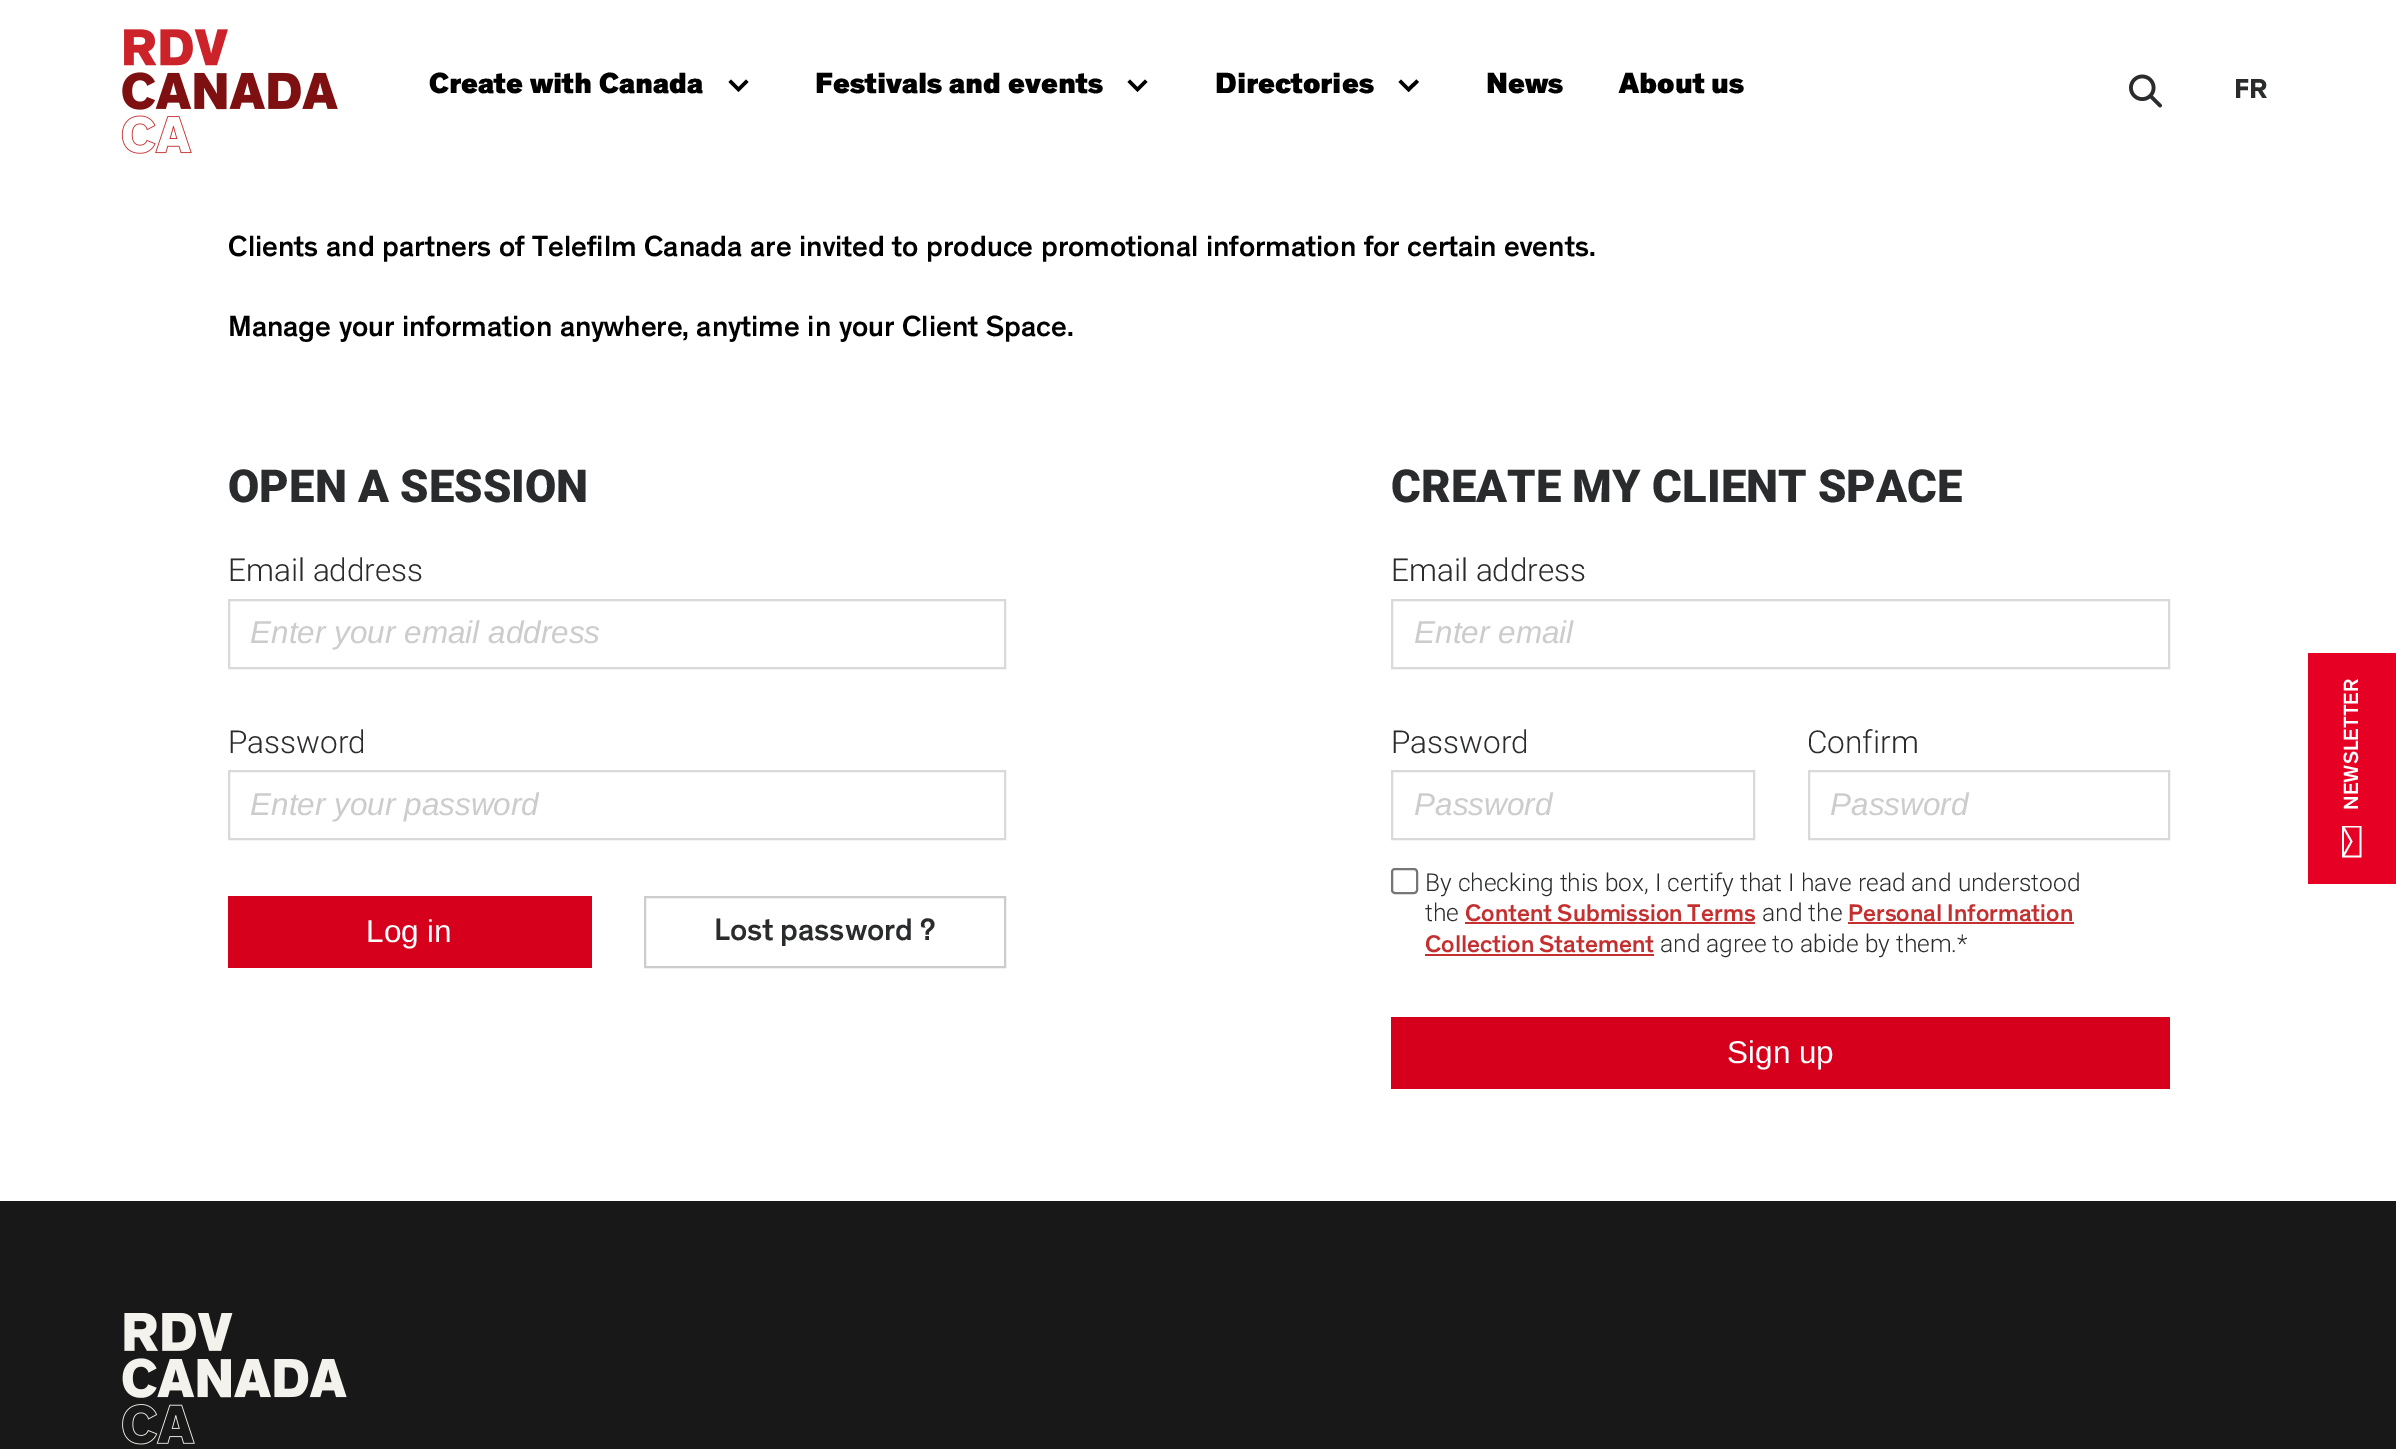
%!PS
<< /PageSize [2396 1449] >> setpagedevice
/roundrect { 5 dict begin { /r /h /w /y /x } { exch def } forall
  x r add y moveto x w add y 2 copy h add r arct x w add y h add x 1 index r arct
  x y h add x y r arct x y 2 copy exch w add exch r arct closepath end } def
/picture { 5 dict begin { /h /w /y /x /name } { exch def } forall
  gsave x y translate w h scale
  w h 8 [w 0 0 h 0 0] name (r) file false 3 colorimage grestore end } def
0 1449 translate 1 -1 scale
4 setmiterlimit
1 setgray
0 0 2396 1449 rectfill
(img1.rgb) 121 29 217 125 picture
/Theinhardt-Black [29.75 0 0 -29.75 0 0] selectfont
0 setgray
429 93 moveto (Create with Canada) show
newpath 728.5 82 moveto 738.5 92 lineto 748.5 82 lineto 746 79.5 lineto 738.5 87 lineto 731 79.5 lineto closepath fill
815 93 moveto (Festivals and events) show
newpath 1127.5 82 moveto 1137.5 92 lineto 1147.5 82 lineto 1145 79.5 lineto 1137.5 87 lineto 1130 79.5 lineto closepath fill
1215 93 moveto (Directories) show
newpath 1398.5 82 moveto 1408.5 92 lineto 1419 82 lineto 1416.5 79.5 lineto 1408.5 87 lineto 1401 79.5 lineto closepath fill
1486 93 moveto (News) show
1619 93 moveto (About us) show
(img2.rgb) 2129 74 33 34 picture
/Theinhardt-Bold [28 0 0 -28 0 0] selectfont
0.161 0.169 0.173 setrgbcolor
2234 98 moveto (FR) show
/Theinhardt-Medium [29.75 0 0 -29.75 0 0] selectfont
0 setgray
228 256 moveto (Clients and partners of Telefilm Canada are invited to produce promotional information for certain events.) show
228 336 moveto (Manage your information anywhere, anytime in your Client Space.) show
/Roboto-Black [45.5 0 0 -45.5 0 0] selectfont
0.161 0.169 0.173 setrgbcolor
228 502 moveto (OPEN A SESSION) show
/Roboto-Light [31.5 0 0 -31.5 0 0] selectfont
228 581 moveto (Email address) show
0.851 setgray
2 setlinewidth
229 600 776 68 rectstroke
/LiberationSans-Italic [31.5 0 0 -31.5 0 0] selectfont
0.8 setgray
250 643 moveto (Enter your email address) show
/Roboto-Light [31.5 0 0 -31.5 0 0] selectfont
0.161 0.169 0.173 setrgbcolor
228 753 moveto (Password) show
0.851 setgray
229 771 776 68 rectstroke
/LiberationSans-Italic [31.5 0 0 -31.5 0 0] selectfont
0.8 setgray
250 815 moveto (Enter your password) show
0.839 0 0.11 setrgbcolor
228 896 364 72 rectfill
/LiberationSans-Regular [31.5 0 0 -31.5 0 0] selectfont
1 setgray
366 942 moveto (Log in) show
0.8 setgray
645 897 360 70 rectstroke
/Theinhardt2-Medium [31.5 0 0 -31.5 0 0] selectfont
0.161 0.169 0.173 setrgbcolor
714 940 moveto (Lost password ?) show
/Roboto-Black [45.5 0 0 -45.5 0 0] selectfont
1391 502 moveto (CREATE MY CLIENT SPACE) show
/Roboto-Light [31.5 0 0 -31.5 0 0] selectfont
1391 581 moveto (Email address) show
0.851 setgray
1392 600 777 68 rectstroke
/LiberationSans-Italic [31.5 0 0 -31.5 0 0] selectfont
0.8 setgray
1414 643 moveto (Enter email) show
/Roboto-Light [31.5 0 0 -31.5 0 0] selectfont
0.161 0.169 0.173 setrgbcolor
1391 753 moveto (Password) show
0.851 setgray
1392 771 362 68 rectstroke
/LiberationSans-Italic [31.5 0 0 -31.5 0 0] selectfont
0.8 setgray
1414 815 moveto (Password) show
/Roboto-Light [31.5 0 0 -31.5 0 0] selectfont
0.161 0.169 0.173 setrgbcolor
1807 753 moveto (Confirm) show
0.851 setgray
1809 771 360 68 rectstroke
/LiberationSans-Italic [31.5 0 0 -31.5 0 0] selectfont
0.8 setgray
1830 815 moveto (Password) show
0.463 setgray
1392 869 25 24 3 roundrect stroke
/Roboto-Light [24.5 0 0 -24.5 0 0] selectfont
0.161 0.169 0.173 setrgbcolor
1425 891 moveto (By checking this box, I certify that I have read and understood) show
1425 921 moveto (the) show
/Theinhardt2-Medium [24.5 0 0 -24.5 0 0] selectfont
0.769 0.184 0.188 setrgbcolor
1465 921 moveto (Content Submission Terms) show
1465 922 290 2 rectfill
/Roboto-Light [24.5 0 0 -24.5 0 0] selectfont
0.161 0.169 0.173 setrgbcolor
1762 921 moveto (and the) show
/Theinhardt2-Medium [24.5 0 0 -24.5 0 0] selectfont
0.769 0.184 0.188 setrgbcolor
1848 921 moveto (Personal Information) show
1848 922 226 2 rectfill
1425 952 moveto (Collection Statement) show
1425 954 229 2 rectfill
/Roboto-Light [24.5 0 0 -24.5 0 0] selectfont
0.161 0.169 0.173 setrgbcolor
1660 952 moveto (and agree to abide by them.*) show
0.839 0 0.11 setrgbcolor
1391 1017 779 72 rectfill
/LiberationSans-Regular [31.5 0 0 -31.5 0 0] selectfont
1 setgray
1727 1063 moveto (Sign up) show
0.094 setgray
0 1201 2396 248 rectfill
(img3.rgb) 122 1313 225 132 picture
0.902 0 0.141 setrgbcolor
2308 653 88 231 rectfill
/Theinhardt2-Medium [21 0 0 -21 0 0] selectfont
1 setgray
gsave 2358 810 translate -90 rotate 0 0 moveto (NEWSLETTER) show grestore
gsave
newpath 2342 858 moveto 2342 826 lineto 2362 826 lineto 2362 858 lineto closepath clip newpath
1.8 setlinewidth
newpath 2343 856.5 moveto 2343 826.5 lineto 2360.5 826.5 lineto 2360.5 856.5 lineto closepath stroke
grestore
1.8 setlinewidth
newpath 2343 856.5 moveto 2351.5 841.5 lineto 2343 826.5 lineto stroke
showpage
